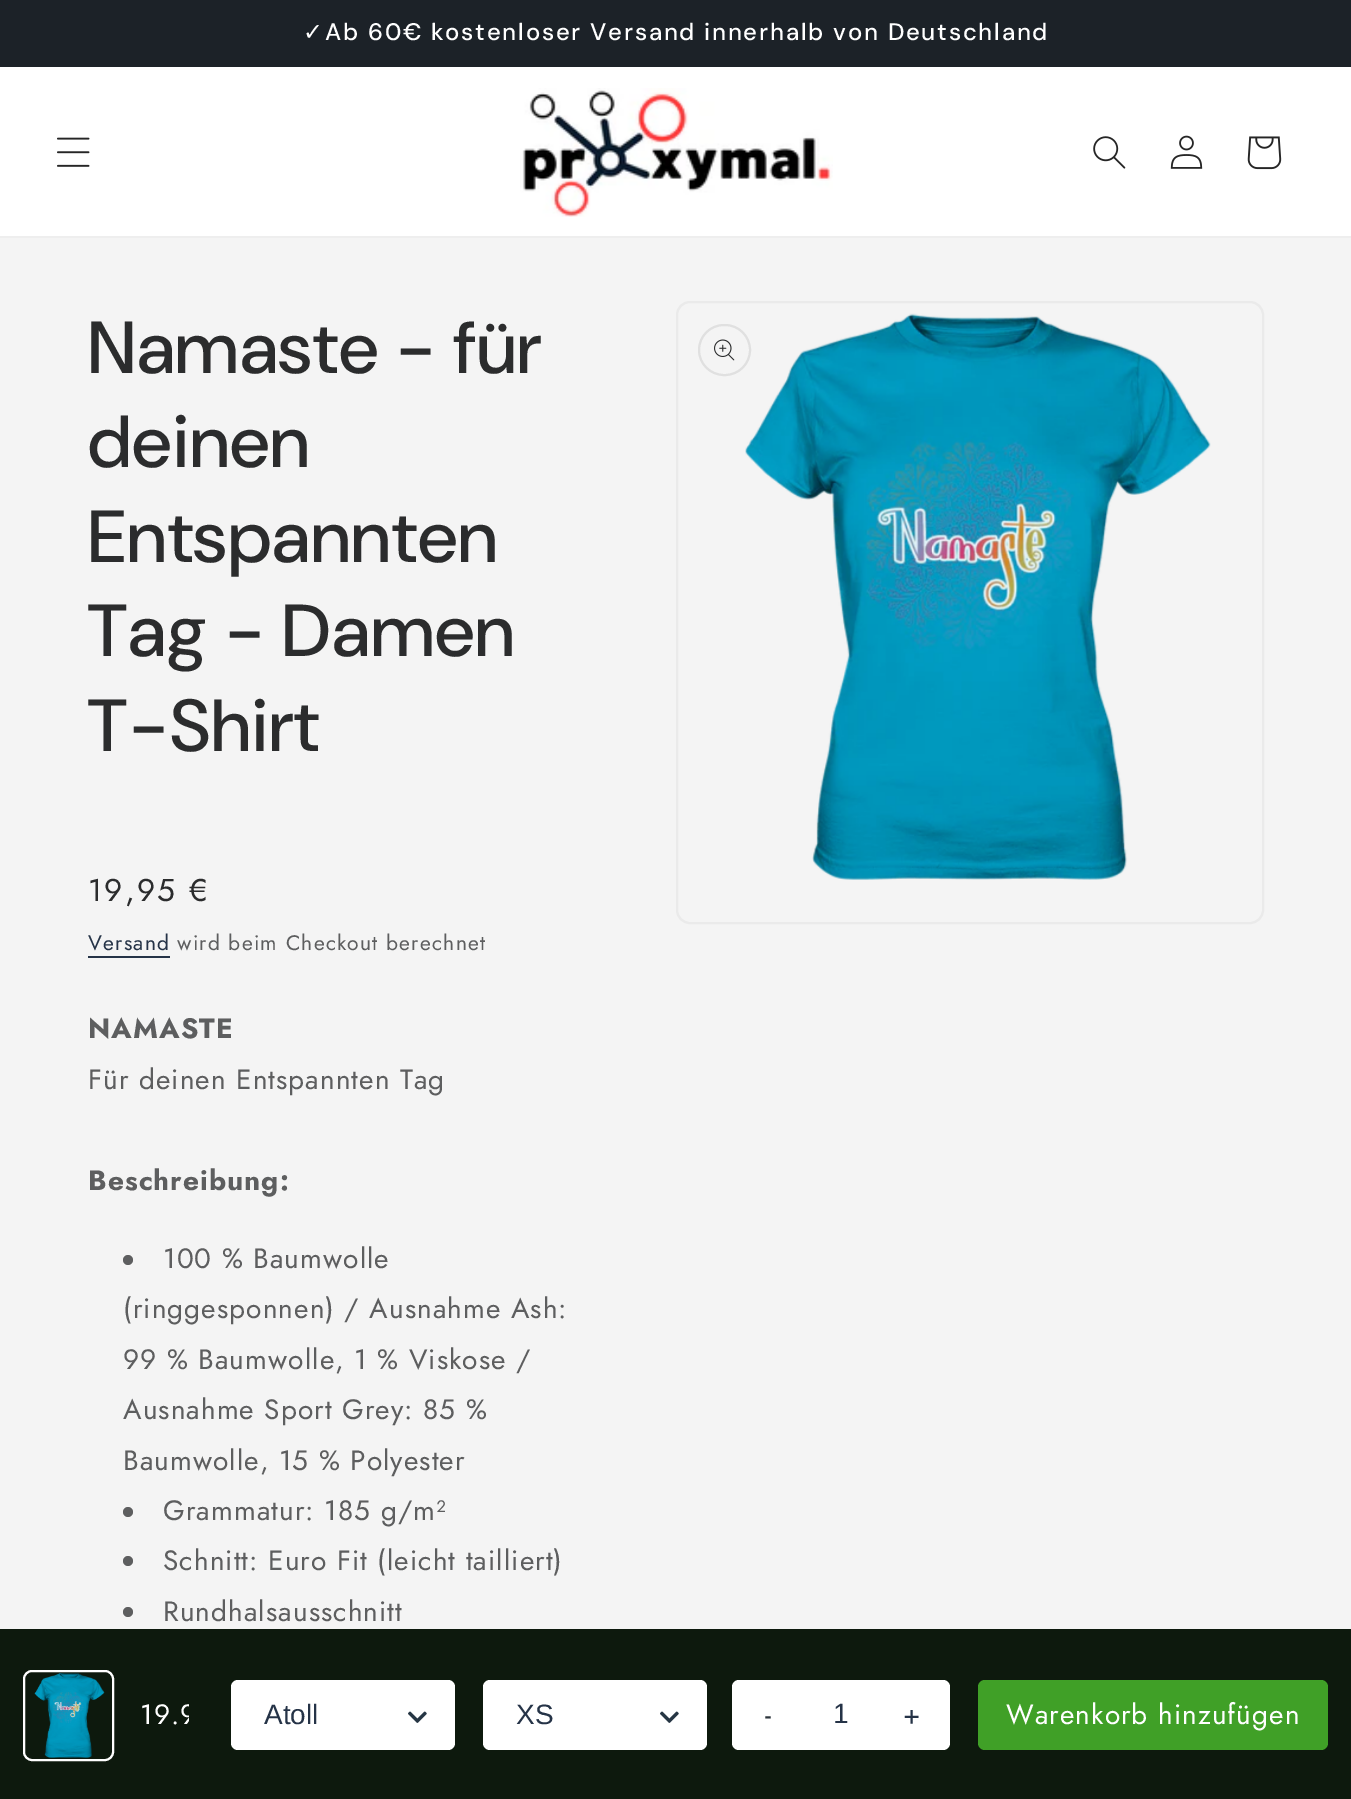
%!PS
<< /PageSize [1351 1799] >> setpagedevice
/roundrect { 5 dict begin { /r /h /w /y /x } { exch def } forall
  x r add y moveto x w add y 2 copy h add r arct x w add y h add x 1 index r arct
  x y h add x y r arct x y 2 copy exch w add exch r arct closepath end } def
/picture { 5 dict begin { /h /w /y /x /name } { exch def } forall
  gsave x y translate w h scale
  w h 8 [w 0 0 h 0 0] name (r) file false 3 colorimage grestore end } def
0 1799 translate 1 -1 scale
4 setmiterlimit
0.957 setgray
0 0 1351 1799 rectfill
0.11 0.133 0.157 setrgbcolor
0 0 1351 67 rectfill
/DejaVuSans-Regular [23.9 0 0 -23.9 0 0] selectfont
1 setgray
303 40 moveto 1.75 0 (✓) ashow
/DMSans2-Medium [23.9 0 0 -23.9 0 0] selectfont
325 40 moveto 1.75 0 (Ab 60€ kostenloser Versand innerhalb von Deutschland) ashow
0 67 1351 169 rectfill
0.933 setgray
0 236 1351 2 rectfill
(img1.rgb) 57 137 33 30 picture
(img2.rgb) 520 88 313 129 picture
(img3.rgb) 1093 136 33 33 picture
(img4.rgb) 1170 135 33 34 picture
(img5.rgb) 1247 136 35 34 picture
/DMSans-Medium [73.5 0 0 -73.5 0 0] selectfont
0.169 0.173 0.176 setrgbcolor
88 373 moveto 1.1 0 (Namaste - für) ashow
88 467 moveto 1.1 0 (deinen) ashow
88 562 moveto 1.1 0 (Entspannten) ashow
88 656 moveto 1.1 0 (Tag - Damen) ashow
88 751 moveto 1.1 0 (T-Shirt) ashow
/Jost-Regular [31.5 0 0 -31.5 0 0] selectfont
88 901 moveto 2.25 0 (19,95 €) ashow
/Jost-Regular [21 0 0 -21 0 0] selectfont
0.145 0.2 0.278 setrgbcolor
88 950 moveto 1.25 0 (Versand) ashow
88 956 82 2 rectfill
0.365 0.369 0.373 setrgbcolor
177 950 moveto 1.25 0 (wird beim Checkout berechnet) ashow
/Jost-Bold [28 0 0 -28 0 0] selectfont
88 1038 moveto 1.05 0 (NAMASTE) ashow
/Jost-Regular [28 0 0 -28 0 0] selectfont
88 1089 moveto 1.05 0 (Für deinen Entspannten Tag) ashow
/Jost-Bold [28 0 0 -28 0 0] selectfont
88 1190 moveto 1.05 0 (Beschreibung:) ashow
newpath 128 1260 5 0 360 arc closepath fill
/Jost-Regular [28 0 0 -28 0 0] selectfont
163 1268 moveto 1.05 0 (100 % Baumwolle) ashow
123 1318 moveto 1.05 0 (\(ringgesponnen\) / Ausnahme Ash:) ashow
123 1369 moveto 1.05 0 (99 % Baumwolle, 1 % Viskose /) ashow
123 1419 moveto 1.05 0 (Ausnahme Sport Grey: 85 %) ashow
123 1470 moveto 1.05 0 (Baumwolle, 15 % Polyester) ashow
newpath 128 1512 5 0 360 arc closepath fill
163 1520 moveto 1.05 0 (Grammatur: 185 g/m²) ashow
newpath 128 1561 5 0 360 arc closepath fill
163 1570 moveto 1.05 0 (Schnitt: Euro Fit \(leicht tailliert\)) ashow
newpath 128 1612 5 0 360 arc closepath fill
163 1621 moveto 1.05 0 (Rundhalsausschnitt) ashow
0.918 setgray
2 setlinewidth
677 302 586 621 13 roundrect stroke
(img7.rgb) 745 313 466 567 picture
0.878 setgray
699 325 51 50 25 roundrect stroke
(img6.rgb) 714 339 21 22 picture
0.051 0.098 0.051 setrgbcolor
0 1629 1351 170 rectfill
(img8.rgb) 34 1673 71 85 picture
1 setgray
24 1671 89 89 8 roundrect stroke
gsave
23 1649 166 131 rectclip
140 1724 moveto 1.05 0 (19.9) ashow
grestore
231 1680 224 70 7 roundrect fill
/LiberationSans-Regular [28 0 0 -28 0 0] selectfont
0.145 0.2 0.278 setrgbcolor
264 1724 moveto (Atoll) show
(img9.rgb) 408 1711 19 12 picture
1 setgray
483 1680 224 70 7 roundrect fill
0.145 0.2 0.278 setrgbcolor
516 1724 moveto (XS) show
(img9.rgb) 660 1711 19 12 picture
1 setgray
732 1680 218 70 7 roundrect fill
/Jost-Regular [28 0 0 -28 0 0] selectfont
0.176 0.208 0.235 setrgbcolor
765 1724 moveto 1.05 0 (-) ashow
/LiberationSans-Regular [28 0 0 -28 0 0] selectfont
0.145 0.2 0.278 setrgbcolor
833 1723 moveto (1) show
/Jost-Regular [28 0 0 -28 0 0] selectfont
903 1724 moveto 1.05 0 (+) ashow
0.251 0.627 0.153 setrgbcolor
978 1680 350 70 7 roundrect fill
1 setgray
1006 1724 moveto 1.05 0 (Warenkorb hinzufügen) ashow
showpage
